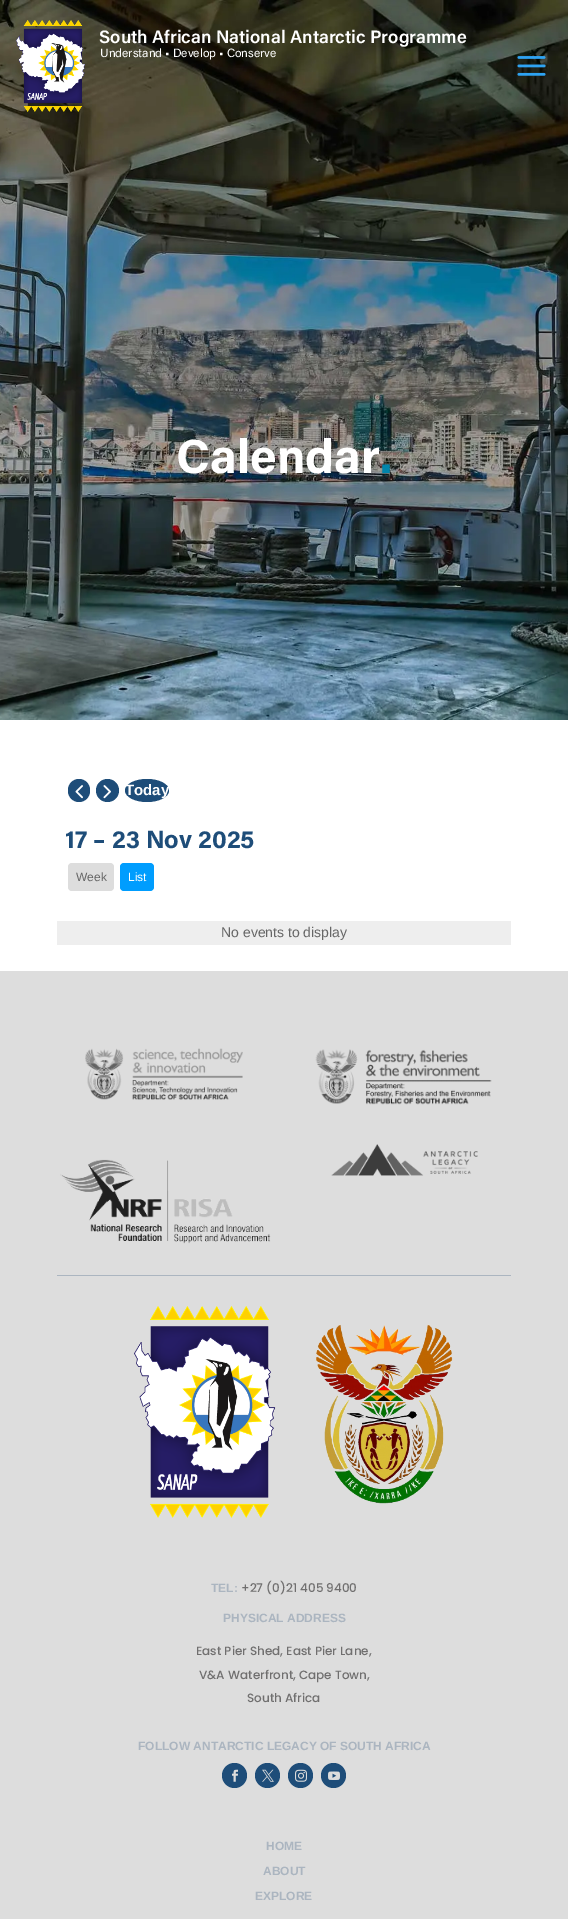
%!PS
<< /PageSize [568 1919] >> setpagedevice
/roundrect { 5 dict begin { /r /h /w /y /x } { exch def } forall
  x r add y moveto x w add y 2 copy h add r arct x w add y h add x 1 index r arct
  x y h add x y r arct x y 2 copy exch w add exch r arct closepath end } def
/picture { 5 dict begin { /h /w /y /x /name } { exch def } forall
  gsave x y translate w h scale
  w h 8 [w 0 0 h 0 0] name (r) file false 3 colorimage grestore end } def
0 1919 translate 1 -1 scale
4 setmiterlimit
1 setgray
0 0 568 1919 rectfill
(img3.rgb) 0 0 568 720 picture
(img1.rgb) 15 20 71 92 picture
/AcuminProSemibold-SemiBold [18 0 0 -18 0 0] selectfont
99 43 moveto (South African National Antarctic Programme) show
/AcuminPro-Regular [12 0 0 -12 0 0] selectfont
100 57 moveto (Understand • Develop • Conserve) show
(img2.rgb) 517 56 29 20 picture
/AcuminPro-Bold [48 0 0 -48 0 0] selectfont
176 473 moveto (Calendar) show
0.004 0.522 0.675 setrgbcolor
380 473 moveto (.) show
0.118 0.302 0.475 setrgbcolor
68 779 22 23 11 roundrect fill
(img4.rgb) 75 785 8 14 picture
newpath 107.5 790.5 11.5 0 360 arc closepath fill
(img5.rgb) 103 785 8 14 picture
newpath 147 779 moveto 159 779 169 784 169 790.5 curveto 169 797 159 802 147 802 curveto 135 802 125 797 125 790.5 curveto 125 784 135 779 147 779 curveto closepath fill
gsave
newpath 147 779 moveto 159 779 169 784 169 790.5 curveto 169 797 159 802 147 802 curveto 135 802 125 797 125 790.5 curveto 125 784 135 779 147 779 curveto closepath clip newpath
/LiberationSans-Bold [15 0 0 -15 0 0] selectfont
1 setgray
125 795 moveto (Today) show
grestore
/AcuminPro-Bold [25 0 0 -25 0 0] selectfont
65 848 moveto (17 – 23 Nov 2025) show
0.867 setgray
68 863 46 28 4 roundrect fill
/LiberationSans-Regular [12 0 0 -12 0 0] selectfont
0.4 setgray
76 881 moveto (Week) show
0 0.616 0.996 setrgbcolor
120 863 34 28 4 roundrect fill
1 setgray
128 881 moveto (List) show
0.933 setgray
57 921 454 24 rectfill
/LiberationSans-Regular [14 0 0 -14 0 0] selectfont
0.4 setgray
221 937 moveto (No events to display) show
0.867 setgray
0 971 568 948 rectfill
(img6.rgb) 85 1048 158 52 picture
(img7.rgb) 315 1049 177 56 picture
(img8.rgb) 60 1159 211 85 picture
(img9.rgb) 331 1144 147 32 picture
0.671 0.71 0.753 setrgbcolor
57 1275 454 1 rectfill
(img10.rgb) 134 1306 142 212 picture
(img11.rgb) 316 1324 137 180 picture
/LiberationSans-Bold [12 0 0 -12 0 0] selectfont
211 1592 moveto (TEL:) show
/Poppins-Medium [12 0 0 -12 0 0] selectfont
0.439 0.435 0.435 setrgbcolor
241 1592 moveto (+27 \(0\)21 405 9400) show
/LiberationSans-Bold [12 0 0 -12 0 0] selectfont
0.671 0.71 0.753 setrgbcolor
223 1622 moveto (PHYSICAL ADDRESS) show
/Poppins-Medium [12 0 0 -12 0 0] selectfont
0.439 0.435 0.435 setrgbcolor
196 1655 moveto (East Pier Shed, East Pier Lane,) show
199 1679 moveto (V&A Waterfront, Cape Town,) show
247 1702 moveto (South Africa) show
/LiberationSans-Bold [12 0 0 -12 0 0] selectfont
0.671 0.71 0.753 setrgbcolor
138 1750 moveto (FOLLOW ANTARCTIC LEGACY OF SOUTH AFRICA) show
0.118 0.302 0.475 setrgbcolor
newpath 234.5 1775.5 12.5 0 360 arc closepath fill
(img12.rgb) 232 1769 6 13 picture
newpath 267.5 1775.5 12.5 0 360 arc closepath fill
(img13.rgb) 262 1769 12 13 picture
newpath 300.5 1775.5 12.5 0 360 arc closepath fill
(img14.rgb) 295 1769 12 13 picture
newpath 333.5 1775.5 12.5 0 360 arc closepath fill
(img15.rgb) 328 1771 12 9 picture
0.671 0.71 0.753 setrgbcolor
266 1850 moveto (HOME) show
263 1875 moveto (ABOUT) show
255 1900 moveto (EXPLORE) show
showpage
